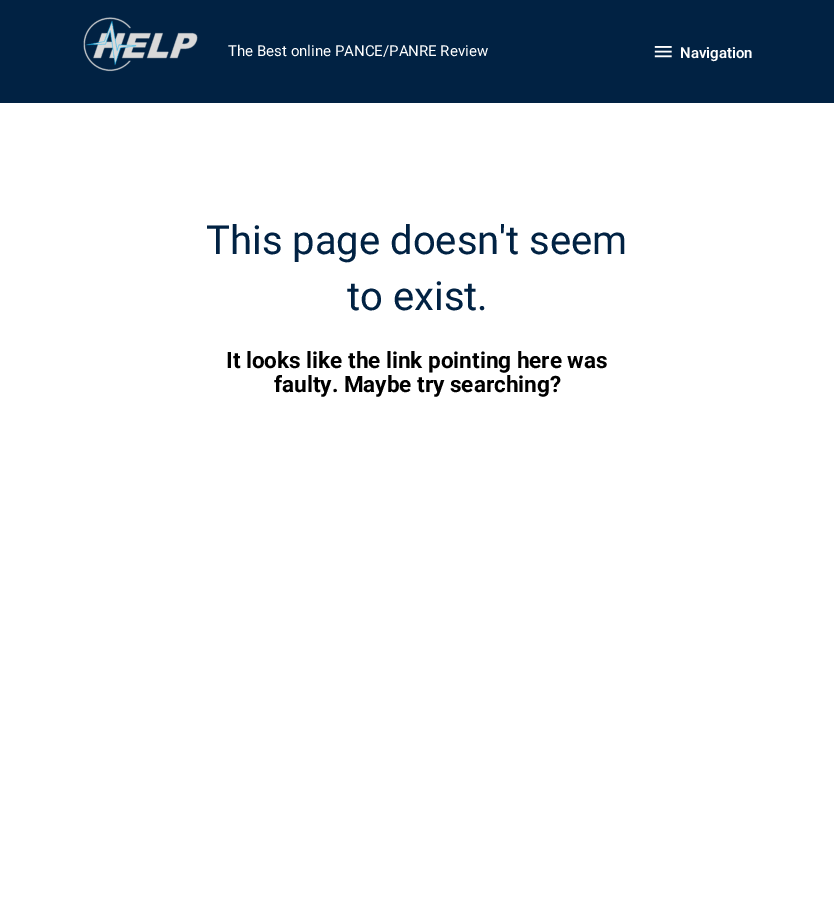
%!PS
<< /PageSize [834 901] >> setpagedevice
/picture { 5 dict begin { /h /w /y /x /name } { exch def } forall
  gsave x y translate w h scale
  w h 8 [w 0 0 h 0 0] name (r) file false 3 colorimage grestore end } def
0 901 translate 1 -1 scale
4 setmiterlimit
1 setgray
0 0 834 901 rectfill
0.004 0.133 0.263 setrgbcolor
0 0 834 103 rectfill
(img1.rgb) 83 17 115 55 picture
/Roboto-Regular [15 0 0 -15 0 0] selectfont
1 setgray
228 56 moveto (The Best online PANCE/PANRE Review) show
(img2.rgb) 654 46 18 12 picture
/Roboto-SemiBold [15 0 0 -15 0 0] selectfont
680 58 moveto (Navigation) show
/Roboto-Regular [40 0 0 -40 0 0] selectfont
0.004 0.133 0.263 setrgbcolor
206 254 moveto (This page doesn't seem) show
347 310 moveto (to exist.) show
/Roboto-Bold [22.5 0 0 -22.5 0 0] selectfont
0 setgray
226 368 moveto (It looks like the link pointing here was) show
274 392 moveto (faulty. Maybe try searching?) show
showpage
